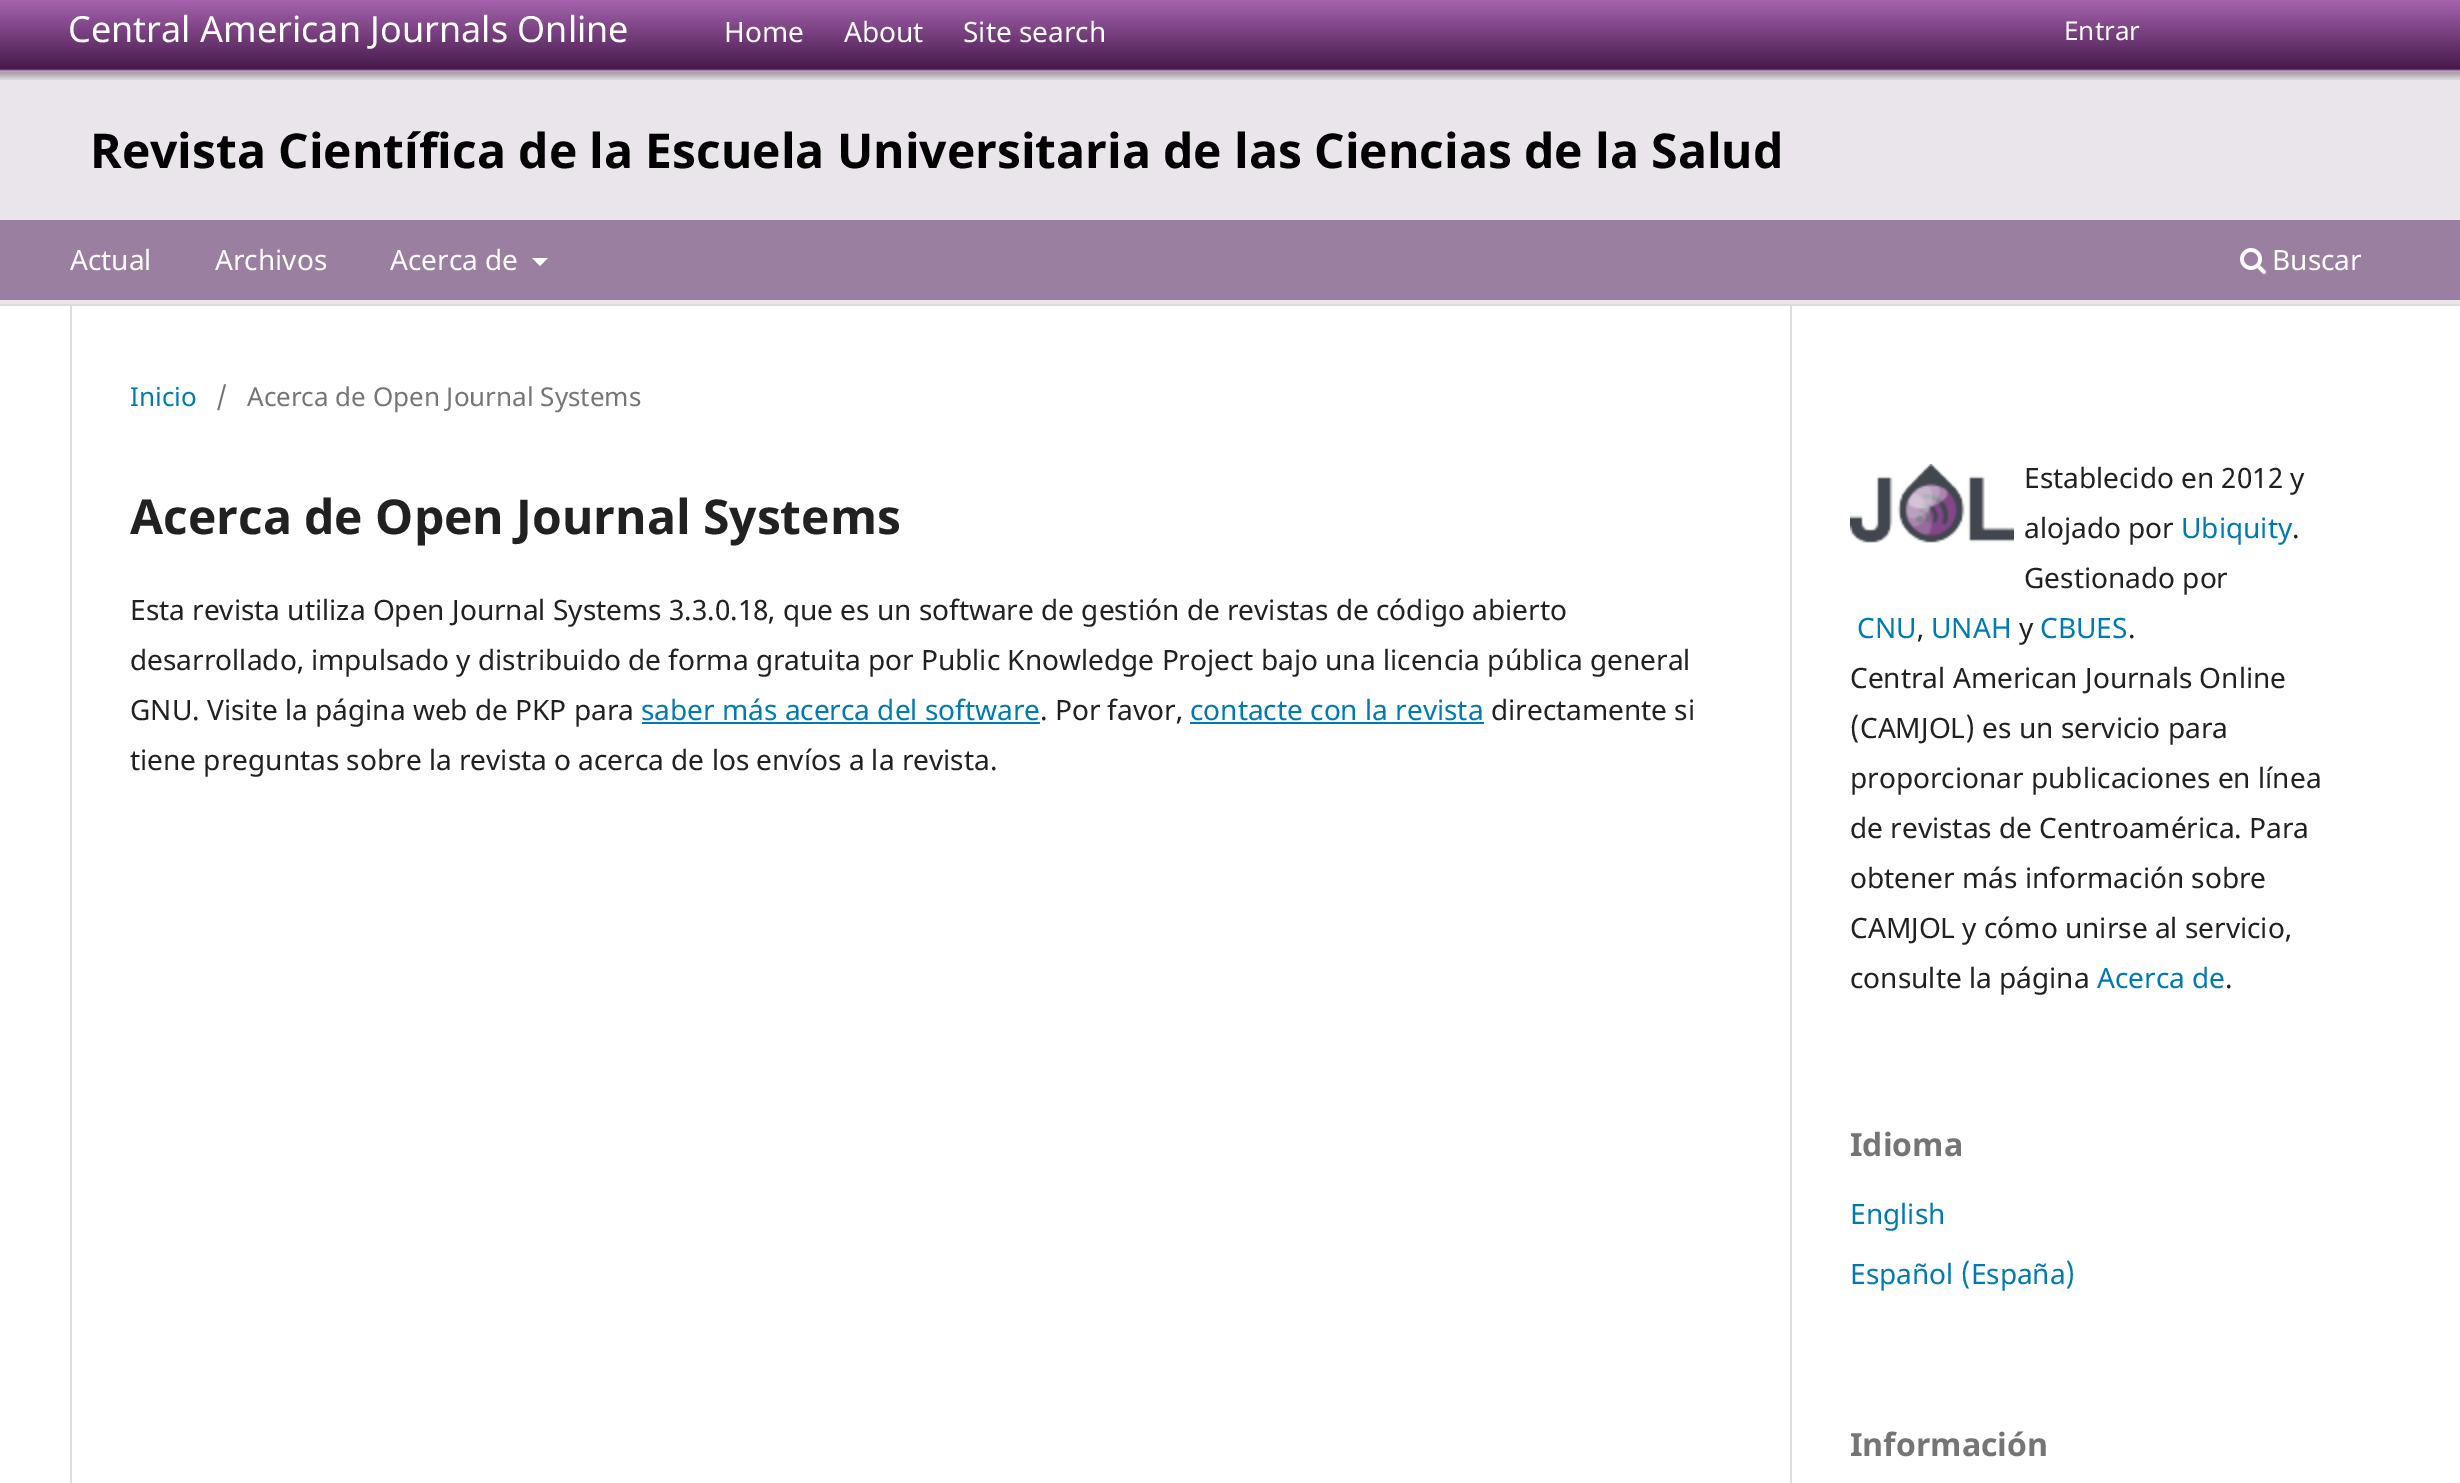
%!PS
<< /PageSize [2460 1483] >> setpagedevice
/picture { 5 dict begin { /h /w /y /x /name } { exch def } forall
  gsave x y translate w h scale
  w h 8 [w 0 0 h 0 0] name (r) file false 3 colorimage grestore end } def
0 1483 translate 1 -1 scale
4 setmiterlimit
1 setgray
0 0 2460 1483 rectfill
0.918 0.894 0.922 setrgbcolor
0 80 2460 224 rectfill
0.867 setgray
0 304 2460 2 rectfill
(img1.rgb) 0 0 2460 80 picture
/NotoSans-Regular [36 0 0 -36 0 0] selectfont
1 setgray
68 42 moveto (Central American Journals Online) show
/NotoSans-Regular [28 0 0 -28 0 0] selectfont
724 42 moveto (Home) show
844 42 moveto (About) show
963 42 moveto (Site search) show
/NotoSans-Regular [26 0 0 -26 0 0] selectfont
2064 40 moveto (Entrar) show
0.604 0.498 0.627 setrgbcolor
0 220 2460 80 rectfill
/NotoSans-Regular [28 0 0 -28 0 0] selectfont
1 setgray
70 270 moveto (Actual) show
215 270 moveto (Archivos) show
390 270 moveto (Acerca de) show
newpath 532 258 moveto 548 258 lineto 540 266 lineto closepath fill
(img2.rgb) 2240 248 26 26 picture
2272 270 moveto (Buscar) show
/NotoSans-Bold [48 0 0 -48 0 0] selectfont
0 setgray
90 168 moveto (Revista Científica de la Escuela Universitaria de las Ciencias de la Salud) show
0.867 setgray
70 306 2 1177 rectfill
/NotoSans-Regular [26 0 0 -26 0 0] selectfont
0 0.478 0.698 setrgbcolor
130 406 moveto (Inicio) show
0.459 setgray
216 406 moveto (/) show
247 406 moveto (Acerca de Open Journal Systems) show
/NotoSans-Bold [48 0 0 -48 0 0] selectfont
0.129 setgray
130 534 moveto (Acerca de Open Journal Systems) show
/NotoSans-Regular [28 0 0 -28 0 0] selectfont
130 620 moveto (Esta revista utiliza Open Journal Systems 3.3.0.18, que es un software de gestión de revistas de código abierto) show
130 670 moveto (desarrollado, impulsado y distribuido de forma gratuita por Public Knowledge Project bajo una licencia pública general) show
130 720 moveto (GNU. Visite la página web de PKP para) show
0 0.478 0.698 setrgbcolor
641 720 moveto (saber más acerca del software) show
642 722 398 2 rectfill
0.129 setgray
1040 720 moveto (. Por favor,) show
0 0.478 0.698 setrgbcolor
1190 720 moveto (contacte con la revista) show
1190 722 294 2 rectfill
0.129 setgray
1491 720 moveto (directamente si) show
130 770 moveto (tiene preguntas sobre la revista o acerca de los envíos a la revista.) show
0.867 setgray
1790 306 2 1177 rectfill
(img3.rgb) 1850 464 164 79 picture
0.129 setgray
2024 488 moveto (Establecido en 2012 y) show
2024 538 moveto (alojado por) show
0 0.478 0.698 setrgbcolor
2181 538 moveto (Ubiquity) show
0.129 setgray
2292 538 moveto (.) show
2024 588 moveto (Gestionado por) show
0 0.478 0.698 setrgbcolor
1857 638 moveto (CNU) show
0.129 setgray
1917 638 moveto (,) show
0 0.478 0.698 setrgbcolor
1931 638 moveto (UNAH) show
0.129 setgray
2019 638 moveto (y) show
0 0.478 0.698 setrgbcolor
2040 638 moveto (CBUES) show
0.129 setgray
2128 638 moveto (.) show
1850 688 moveto (Central American Journals Online) show
1850 738 moveto (\(CAMJOL\) es un servicio para) show
1850 788 moveto (proporcionar publicaciones en línea) show
1850 838 moveto (de revistas de Centroamérica. Para) show
1850 888 moveto (obtener más información sobre) show
1850 938 moveto (CAMJOL y cómo unirse al servicio,) show
1850 988 moveto (consulte la página) show
0 0.478 0.698 setrgbcolor
2097 988 moveto (Acerca de) show
0.129 setgray
2225 988 moveto (.) show
/NotoSans-Bold [32 0 0 -32 0 0] selectfont
0.459 setgray
1850 1156 moveto (Idioma) show
/NotoSans-Regular [28 0 0 -28 0 0] selectfont
0 0.478 0.698 setrgbcolor
1850 1224 moveto (English) show
1850 1284 moveto (Español \(España\)) show
/NotoSans-Bold [32 0 0 -32 0 0] selectfont
0.459 setgray
1850 1456 moveto (Información) show
showpage
